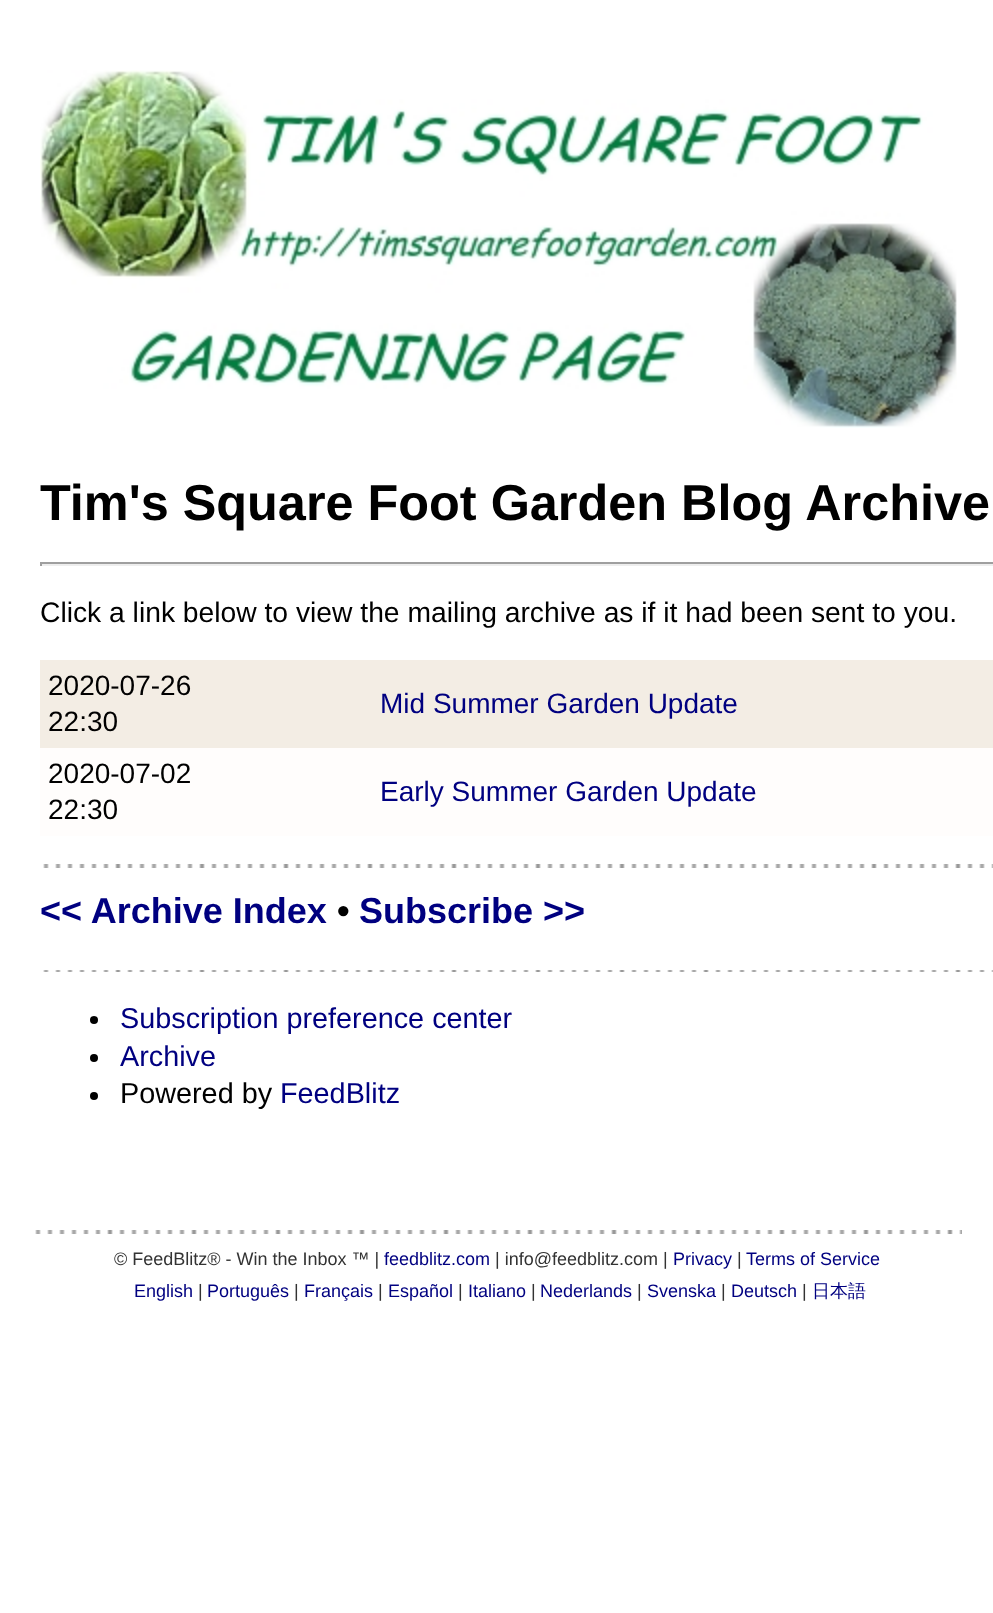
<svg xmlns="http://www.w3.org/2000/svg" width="993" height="1613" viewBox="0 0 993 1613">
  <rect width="100%" height="100%" fill="rgb(255,255,255)"/>
  <image x="40" y="70" width="917" height="358" href="pic1.png"/>
  <text x="40" y="520" font-family="Liberation Sans" font-size="50.4" font-weight="bold" fill="rgb(0,0,0)">Tim's Square Foot Garden Blog Archive</text>
  <rect x="40" y="562" width="953" height="2" fill="rgb(159,159,159)"/>
  <rect x="40" y="564" width="953" height="2" fill="rgb(238,238,238)"/>
  <rect x="40" y="562" width="2" height="4" fill="rgb(159,159,159)"/>
  <text x="40" y="622" font-family="Liberation Sans" font-size="28.25" fill="rgb(0,0,0)">Click a link below to view the mailing archive as if it had been sent to you.</text>
  <rect x="40" y="660" width="953" height="88" fill="rgb(243,237,228)"/>
  <g font-family="Liberation Sans" font-size="28" fill="rgb(0,0,0)">
    <text>
      <tspan x="48" y="695">2020-07-26</tspan>
      <tspan x="48" y="731">22:30</tspan>
    </text>
  </g>
  <text x="380" y="713" font-family="Liberation Sans" font-size="28" fill="rgb(0,0,128)">Mid Summer Garden Update</text>
  <rect x="40" y="748" width="953" height="88" fill="rgb(255,253,252)"/>
  <g font-family="Liberation Sans" font-size="28" fill="rgb(0,0,0)">
    <text>
      <tspan x="48" y="783">2020-07-02</tspan>
      <tspan x="48" y="819">22:30</tspan>
    </text>
  </g>
  <text x="380" y="801" font-family="Liberation Sans" font-size="28" fill="rgb(0,0,128)">Early Summer Garden Update</text>
  <image x="43" y="864" width="950" height="4" href="pic2.png"/>
  <text x="40" y="923" font-family="Liberation Sans" font-size="36" font-weight="bold" fill="rgb(0,0,128)">&lt;&lt; Archive Index</text>
  <text x="337" y="923" font-family="Liberation Sans" font-size="36" font-weight="bold" fill="rgb(0,0,0)">•</text>
  <text x="359" y="923" font-family="Liberation Sans" font-size="36" font-weight="bold" fill="rgb(0,0,128)">Subscribe &gt;&gt;</text>
  <image x="43" y="970" width="950" height="2" href="pic3.png"/>
  <circle cx="94" cy="1020" r="4" fill="rgb(0,0,0)"/>
  <text x="120" y="1028" font-family="Liberation Sans" font-size="28.8" fill="rgb(0,0,128)">Subscription preference center</text>
  <circle cx="94" cy="1058" r="4" fill="rgb(0,0,0)"/>
  <text x="120" y="1066" font-family="Liberation Sans" font-size="28.8" fill="rgb(0,0,128)">Archive</text>
  <circle cx="94" cy="1096" r="4" fill="rgb(0,0,0)"/>
  <text x="120" y="1103" font-family="Liberation Sans" font-size="28.8" fill="rgb(0,0,0)">Powered by</text>
  <text x="280" y="1103" font-family="Liberation Sans" font-size="28.8" fill="rgb(0,0,128)">FeedBlitz</text>
  <image x="35" y="1230" width="927" height="4" href="pic4.png"/>
  <text x="114" y="1265" font-family="Liberation Sans" font-size="18" fill="rgb(51,51,51)">© FeedBlitz® - Win the Inbox ™ |</text>
  <text x="384" y="1265" font-family="Liberation Sans" font-size="18" fill="rgb(0,0,128)">feedblitz.com</text>
  <text x="495" y="1265" font-family="Liberation Sans" font-size="18" fill="rgb(51,51,51)">| info@feedblitz.com |</text>
  <text x="673" y="1265" font-family="Liberation Sans" font-size="18" fill="rgb(0,0,128)">Privacy</text>
  <text x="737" y="1265" font-family="Liberation Sans" font-size="18" fill="rgb(51,51,51)">|</text>
  <g font-family="Liberation Sans" font-size="18" fill="rgb(0,0,128)">
    <text x="746" y="1265">Terms of Service</text>
    <text x="134" y="1297">English</text>
  </g>
  <text x="198" y="1297" font-family="Liberation Sans" font-size="18" fill="rgb(51,51,51)">|</text>
  <text x="207" y="1297" font-family="Liberation Sans" font-size="18" fill="rgb(0,0,128)">Português</text>
  <text x="294" y="1297" font-family="Liberation Sans" font-size="18" fill="rgb(51,51,51)">|</text>
  <text x="304" y="1297" font-family="Liberation Sans" font-size="18" fill="rgb(0,0,128)">Français</text>
  <text x="378" y="1297" font-family="Liberation Sans" font-size="18" fill="rgb(51,51,51)">|</text>
  <text x="388" y="1297" font-family="Liberation Sans" font-size="18" fill="rgb(0,0,128)">Español</text>
  <text x="458" y="1297" font-family="Liberation Sans" font-size="18" fill="rgb(51,51,51)">|</text>
  <text x="468" y="1297" font-family="Liberation Sans" font-size="18" fill="rgb(0,0,128)">Italiano</text>
  <text x="531" y="1297" font-family="Liberation Sans" font-size="18" fill="rgb(51,51,51)">|</text>
  <text x="540" y="1297" font-family="Liberation Sans" font-size="18" fill="rgb(0,0,128)">Nederlands</text>
  <text x="637" y="1297" font-family="Liberation Sans" font-size="18" fill="rgb(51,51,51)">|</text>
  <text x="647" y="1297" font-family="Liberation Sans" font-size="18" fill="rgb(0,0,128)">Svenska</text>
  <text x="721" y="1297" font-family="Liberation Sans" font-size="18" fill="rgb(51,51,51)">|</text>
  <text x="731" y="1297" font-family="Liberation Sans" font-size="18" fill="rgb(0,0,128)">Deutsch</text>
  <text x="802" y="1297" font-family="Liberation Sans" font-size="18" fill="rgb(51,51,51)">|</text>
  <text x="812" y="1297" font-family="WenQuanYi Zen Hei" font-size="18" font-weight="500" fill="rgb(0,0,128)">日本語</text>
</svg>
